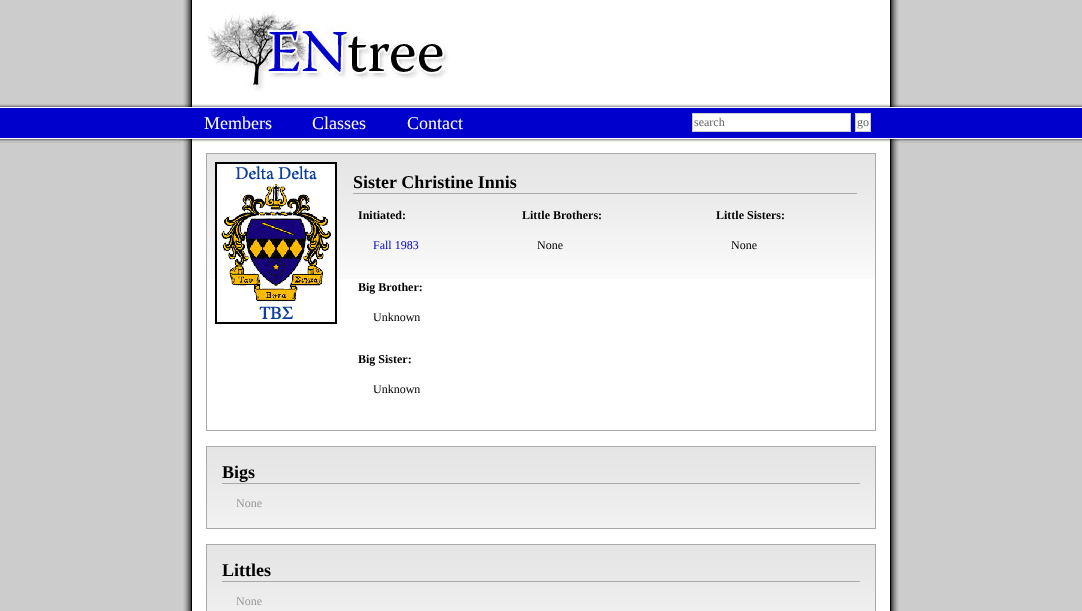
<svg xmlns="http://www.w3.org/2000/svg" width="1082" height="611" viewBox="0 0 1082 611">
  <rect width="100%" height="100%" fill="rgb(204,204,204)"/>
  <image x="183" y="0" width="716" height="104" href="pic1.png"/>
  <image x="207" y="10" width="242" height="81" href="pic2.png"/>
  <image x="0" y="104" width="1082" height="39" href="pic3.png"/>
  <image x="181" y="104" width="720" height="39" href="pic4.png"/>
  <g font-family="Liberation Serif" font-size="18" fill="rgb(255,255,255)">
    <text x="204" y="129">Members</text>
    <text x="312" y="129">Classes</text>
    <text x="407" y="129">Contact</text>
  </g>
  <rect x="692.5" y="113.5" width="158" height="18" fill="rgb(255,255,255)" stroke="rgb(204,204,204)"/>
  <text x="694" y="126" font-family="Liberation Serif" font-size="12" fill="rgb(102,102,102)">search</text>
  <rect x="855.5" y="113.5" width="15" height="18" fill="rgb(255,255,255)" stroke="rgb(204,204,204)"/>
  <text x="857" y="126" font-family="Liberation Serif" font-size="12" fill="rgb(102,102,102)">go</text>
  <image x="183" y="143" width="716" height="468" href="pic5.png"/>
  <image x="207" y="154" width="668" height="125" href="pic6.png"/>
  <rect x="206.5" y="153.5" width="669" height="277" fill="none" stroke="rgb(170,170,170)"/>
  <rect x="215.5" y="162.5" width="121" height="161" fill="none" stroke="rgb(0,0,0)"/>
  <image x="216" y="163" width="120" height="160" href="pic7.png"/>
  <rect x="353" y="193" width="504" height="1" fill="rgb(170,170,170)"/>
  <text x="353" y="188" font-family="Liberation Serif" font-size="18" font-weight="bold" fill="rgb(0,0,0)">Sister Christine Innis</text>
  <text x="358" y="219" font-family="Liberation Serif" font-size="12" font-weight="bold" fill="rgb(0,0,0)">Initiated:</text>
  <text x="373" y="249" font-family="Liberation Serif" font-size="12" fill="rgb(0,0,204)">Fall 1983</text>
  <text x="358" y="291" font-family="Liberation Serif" font-size="12" font-weight="bold" fill="rgb(0,0,0)">Big Brother:</text>
  <text x="373" y="321" font-family="Liberation Serif" font-size="12" fill="rgb(0,0,0)">Unknown</text>
  <text x="358" y="363" font-family="Liberation Serif" font-size="12" font-weight="bold" fill="rgb(0,0,0)">Big Sister:</text>
  <text x="373" y="393" font-family="Liberation Serif" font-size="12" fill="rgb(0,0,0)">Unknown</text>
  <text x="522" y="219" font-family="Liberation Serif" font-size="12" font-weight="bold" fill="rgb(0,0,0)">Little Brothers:</text>
  <text x="537" y="249" font-family="Liberation Serif" font-size="12" fill="rgb(0,0,0)">None</text>
  <text x="716" y="219" font-family="Liberation Serif" font-size="12" font-weight="bold" fill="rgb(0,0,0)">Little Sisters:</text>
  <text x="731" y="249" font-family="Liberation Serif" font-size="12" fill="rgb(0,0,0)">None</text>
  <image x="207" y="447" width="668" height="81" href="pic8.png"/>
  <rect x="206.5" y="446.5" width="669" height="82" fill="none" stroke="rgb(170,170,170)"/>
  <rect x="222" y="483" width="638" height="1" fill="rgb(170,170,170)"/>
  <text x="222" y="478" font-family="Liberation Serif" font-size="18" font-weight="bold" fill="rgb(0,0,0)">Bigs</text>
  <text x="236" y="507" font-family="Liberation Serif" font-size="12" fill="rgb(153,153,153)">None</text>
  <image x="207" y="545" width="668" height="66" href="pic9.png"/>
  <rect x="206.5" y="544.5" width="669" height="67" fill="none" stroke="rgb(170,170,170)"/>
  <rect x="222" y="581" width="638" height="1" fill="rgb(170,170,170)"/>
  <text x="222" y="576" font-family="Liberation Serif" font-size="18" font-weight="bold" fill="rgb(0,0,0)">Littles</text>
  <text x="236" y="605" font-family="Liberation Serif" font-size="12" fill="rgb(153,153,153)">None</text>
</svg>
